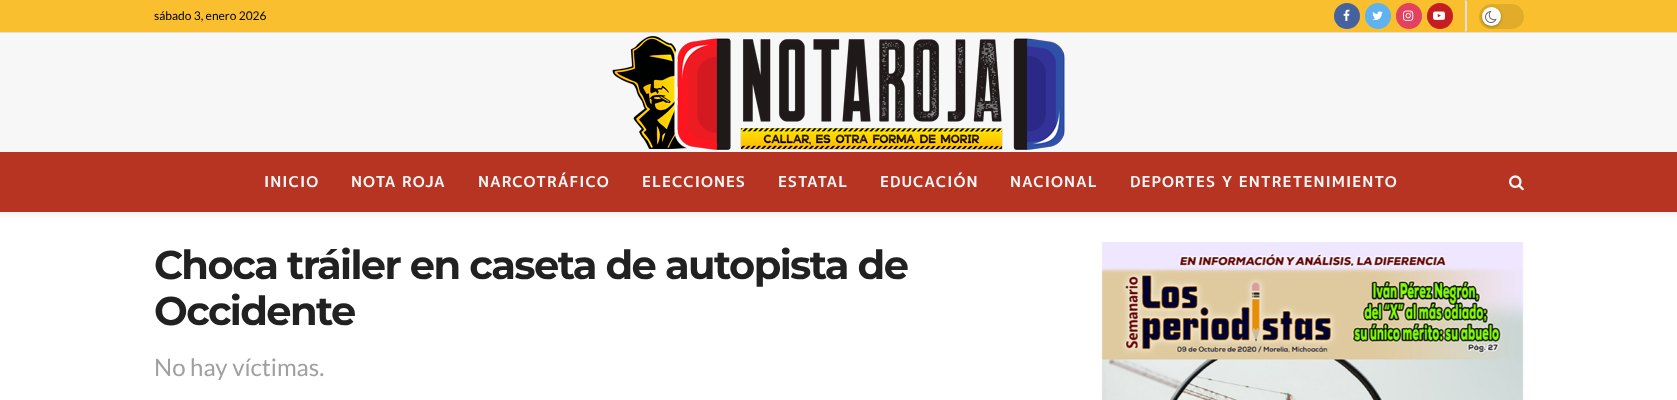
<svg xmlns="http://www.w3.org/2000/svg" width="1677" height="400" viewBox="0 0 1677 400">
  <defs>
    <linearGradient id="g1" gradientUnits="userSpaceOnUse" x1="839" y1="212" x2="839" y2="220"><stop offset="0" stop-color="rgb(242,242,242)"/><stop offset="1" stop-color="rgb(255,255,255)"/></linearGradient>
  </defs>
  <rect width="100%" height="100%" fill="rgb(255,255,255)"/>
  <rect x="0" y="0" width="1677" height="32" fill="rgb(249,191,47)"/>
  <rect x="0" y="32" width="1677" height="1" fill="rgb(224,224,224)"/>
  <text x="154" y="20" font-family="Lato" font-size="12" fill="rgb(0,0,0)">sábado 3, enero 2026</text>
  <rect x="1465" y="0" width="1" height="32" fill="rgb(224,224,224)"/>
  <circle cx="1347" cy="16" r="13" fill="rgb(69,98,159)"/>
  <image x="1343" y="9" width="7" height="12" href="pic1.png"/>
  <circle cx="1378" cy="16" r="13" fill="rgb(94,178,239)"/>
  <image x="1372" y="11" width="11" height="9" href="pic2.png"/>
  <circle cx="1409" cy="16" r="13" fill="rgb(228,64,95)"/>
  <image x="1403" y="10" width="11" height="11" href="pic3.png"/>
  <circle cx="1440" cy="16" r="13" fill="rgb(198,29,35)"/>
  <image x="1433" y="11" width="12" height="9" href="pic4.png"/>
  <rect x="1466" y="1" width="1" height="30" fill="rgb(224,224,224)"/>
  <rect x="1479" y="4" width="45" height="25" rx="12.5" fill="rgb(224,172,42)"/>
  <rect x="1482" y="8" width="19" height="19" rx="9.5" fill="rgba(0,0,0,0.3)" filter="blur(1.5px)"/>
  <circle cx="1491.5" cy="16.5" r="9.5" fill="rgb(255,255,255)"/>
  <image x="1485" y="11" width="12" height="12" href="pic5.png"/>
  <rect x="0" y="33" width="1677" height="119" fill="rgb(247,247,247)"/>
  <image x="612" y="36" width="453" height="114" href="pic6.png"/>
  <rect x="0" y="152" width="1677" height="60" fill="rgb(183,52,35)"/>
  <g font-family="'M PLUS 1p'" font-size="15" font-weight="bold" letter-spacing="1" fill="rgb(245,245,245)">
    <text x="264" y="187">INICIO</text>
    <text x="351" y="187">NOTA ROJA</text>
    <text x="478" y="187">NARCOTRÁFICO</text>
    <text x="642" y="187">ELECCIONES</text>
    <text x="778" y="187">ESTATAL</text>
    <text x="880" y="187">EDUCACIÓN</text>
    <text x="1010" y="187">NACIONAL</text>
    <text x="1130" y="187">DEPORTES Y ENTRETENIMIENTO</text>
  </g>
  <image x="1509" y="175" width="15" height="16" href="pic7.png"/>
  <rect x="0" y="212" width="1677" height="6" fill="url(#g1)"/>
  <g font-family="Montserrat" font-size="40" font-weight="bold" letter-spacing="-1.6" fill="rgb(33,33,33)">
    <text>
      <tspan x="154" y="279">Choca tráiler en caseta de autopista de</tspan>
      <tspan x="154" y="325">Occidente</tspan>
    </text>
  </g>
  <text x="154" y="376" font-family="Lato" font-size="24" fill="rgb(160,160,160)">No hay víctimas.</text>
  <image x="1101" y="242" width="423" height="158" href="pic8.png"/>
</svg>
